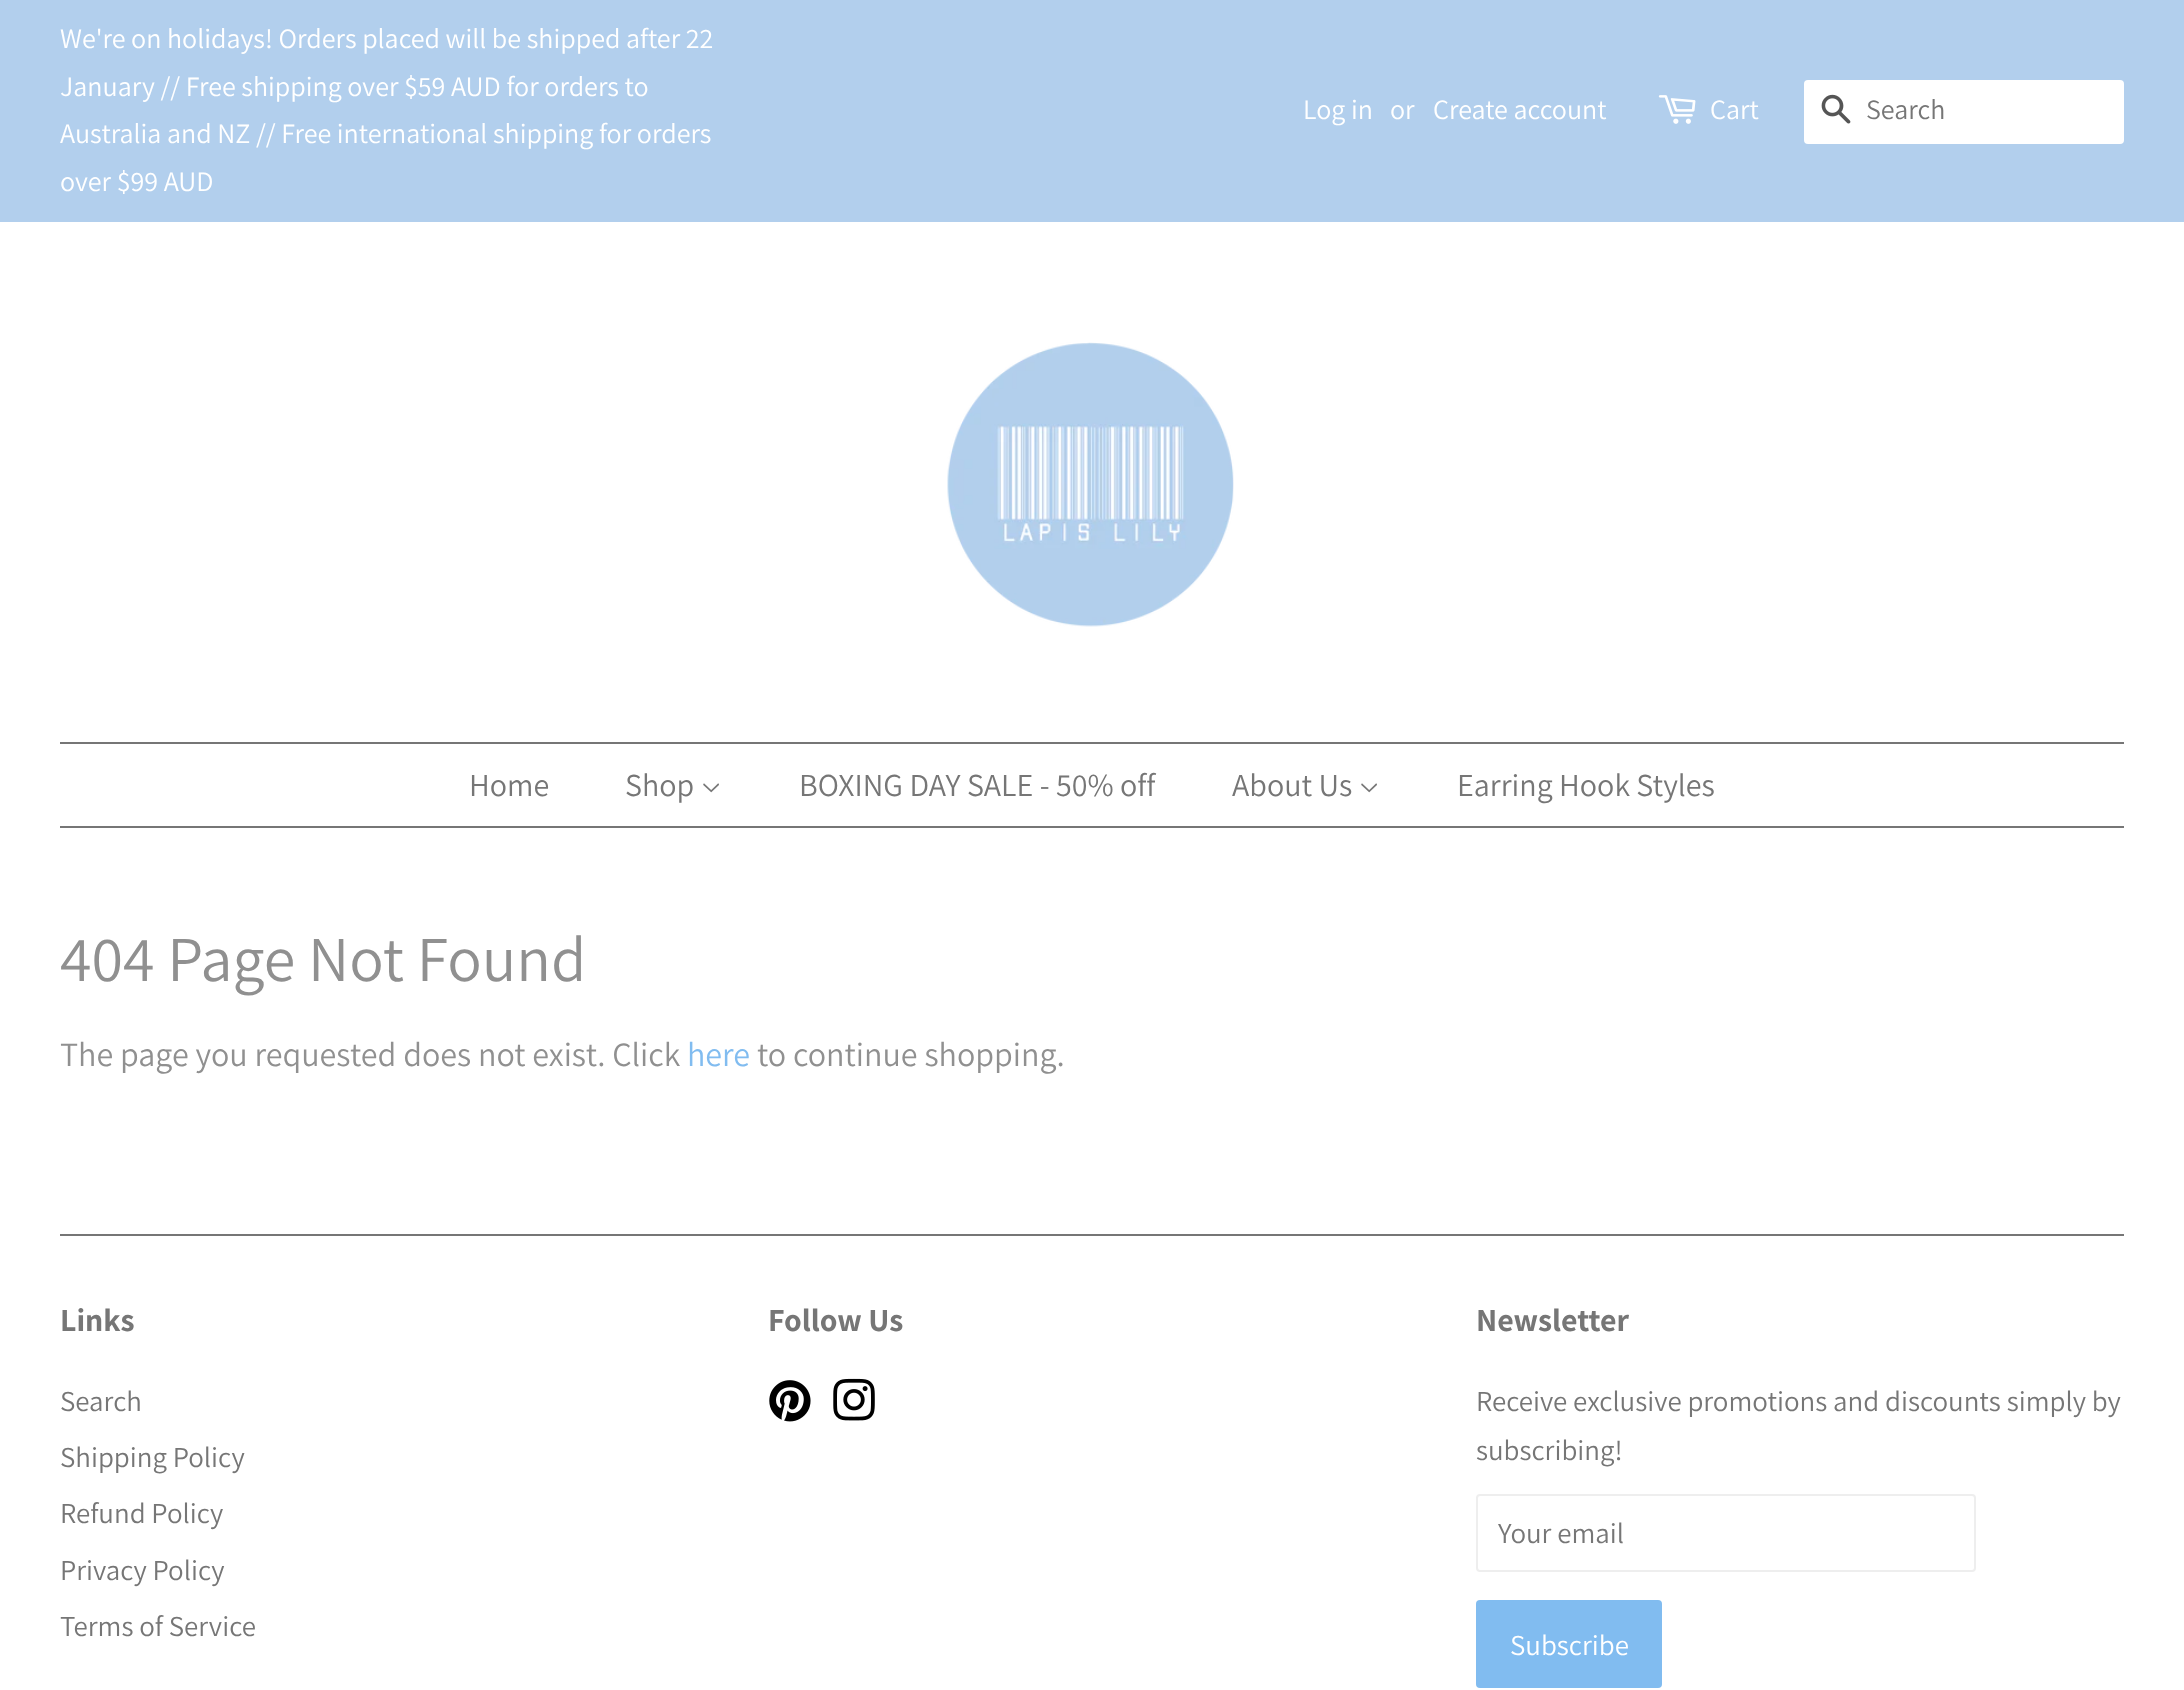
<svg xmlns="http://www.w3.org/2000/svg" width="2184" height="1690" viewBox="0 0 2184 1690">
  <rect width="100%" height="100%" fill="rgb(255,255,255)"/>
  <rect x="0" y="0" width="2184" height="222" fill="rgb(178,207,237)"/>
  <g font-family="Assistant" font-size="28" fill="rgb(255,255,255)">
    <text>
      <tspan x="60" y="48">We're on holidays! Orders placed will be shipped after 22</tspan>
      <tspan x="60" y="96">January // Free shipping over $59 AUD for orders to</tspan>
      <tspan x="60" y="143">Australia and NZ // Free international shipping for orders</tspan>
      <tspan x="60" y="191">over $99 AUD</tspan>
    </text>
    <text x="1303" y="119">Log in</text>
    <text x="1390" y="119">or</text>
    <text x="1433" y="119">Create account</text>
  </g>
  <image x="1658" y="95" width="38" height="29" href="pic1.png"/>
  <text x="1710" y="119" font-family="Assistant" font-size="28" fill="rgb(255,255,255)">Cart</text>
  <rect x="1804" y="80" width="320" height="64" rx="4" fill="rgb(255,255,255)"/>
  <image x="1821" y="94" width="30" height="30" href="pic2.png"/>
  <text x="1866" y="119" font-family="Assistant" font-size="28" fill="rgb(118,118,118)">Search</text>
  <image x="947" y="342" width="287" height="285" href="pic3.png"/>
  <rect x="60" y="742" width="2064" height="2" fill="rgb(118,118,118)"/>
  <rect x="60" y="826" width="2064" height="2" fill="rgb(118,118,118)"/>
  <g font-family="Assistant" font-size="32" fill="rgb(118,118,118)">
    <text x="469" y="796">Home</text>
    <text x="625" y="796">Shop</text>
  </g>
  <image x="703" y="783" width="16" height="10" href="pic4.png"/>
  <g font-family="Assistant" font-size="32" fill="rgb(118,118,118)">
    <text x="799" y="796">BOXING DAY SALE - 50% off</text>
    <text x="1232" y="796">About Us</text>
  </g>
  <image x="1361" y="783" width="16" height="10" href="pic4.png"/>
  <text x="1457" y="796" font-family="Assistant" font-size="32" fill="rgb(118,118,118)">Earring Hook Styles</text>
  <text x="60" y="981" font-family="Assistant" font-size="64" fill="rgb(144,144,144)">404 Page Not Found</text>
  <text x="60" y="1066" font-family="Assistant" font-size="34" fill="rgb(144,144,144)">The page you requested does not exist. Click</text>
  <text x="687" y="1066" font-family="Assistant" font-size="34" fill="rgb(129,188,240)">here</text>
  <text x="757" y="1066" font-family="Assistant" font-size="34" fill="rgb(144,144,144)">to continue shopping.</text>
  <rect x="60" y="1234" width="2064" height="2" fill="rgb(118,118,118)"/>
  <text x="60" y="1331" font-family="Assistant" font-size="32" font-weight="bold" fill="rgb(118,118,118)">Links</text>
  <g font-family="Assistant" font-size="28.9" fill="rgb(118,118,118)">
    <text>
      <tspan x="60" y="1411">Search</tspan>
      <tspan x="60" y="1467">Shipping Policy</tspan>
      <tspan x="60" y="1523">Refund Policy</tspan>
      <tspan x="60" y="1580">Privacy Policy</tspan>
      <tspan x="60" y="1636">Terms of Service</tspan>
    </text>
  </g>
  <text x="768" y="1331" font-family="Assistant" font-size="32" font-weight="bold" fill="rgb(118,118,118)">Follow Us</text>
  <image x="769" y="1380" width="42" height="42" href="pic5.png"/>
  <image x="833" y="1378" width="42" height="43" href="pic6.png"/>
  <text x="1476" y="1331" font-family="Assistant" font-size="32" font-weight="bold" fill="rgb(118,118,118)">Newsletter</text>
  <g font-family="Assistant" font-size="28.9" fill="rgb(118,118,118)">
    <text>
      <tspan x="1476" y="1411">Receive exclusive promotions and discounts simply by</tspan>
      <tspan x="1476" y="1460">subscribing!</tspan>
    </text>
  </g>
  <rect x="1477" y="1495" width="498" height="76" rx="3" fill="none" stroke="rgb(238,238,238)" stroke-width="2"/>
  <text x="1498" y="1543" font-family="Assistant" font-size="28.9" fill="rgb(118,118,118)">Your email</text>
  <rect x="1476" y="1600" width="186" height="88" rx="4" fill="rgb(129,188,240)"/>
  <text x="1510" y="1655" font-family="Assistant" font-size="28.9" fill="rgb(255,255,255)">Subscribe</text>
</svg>
